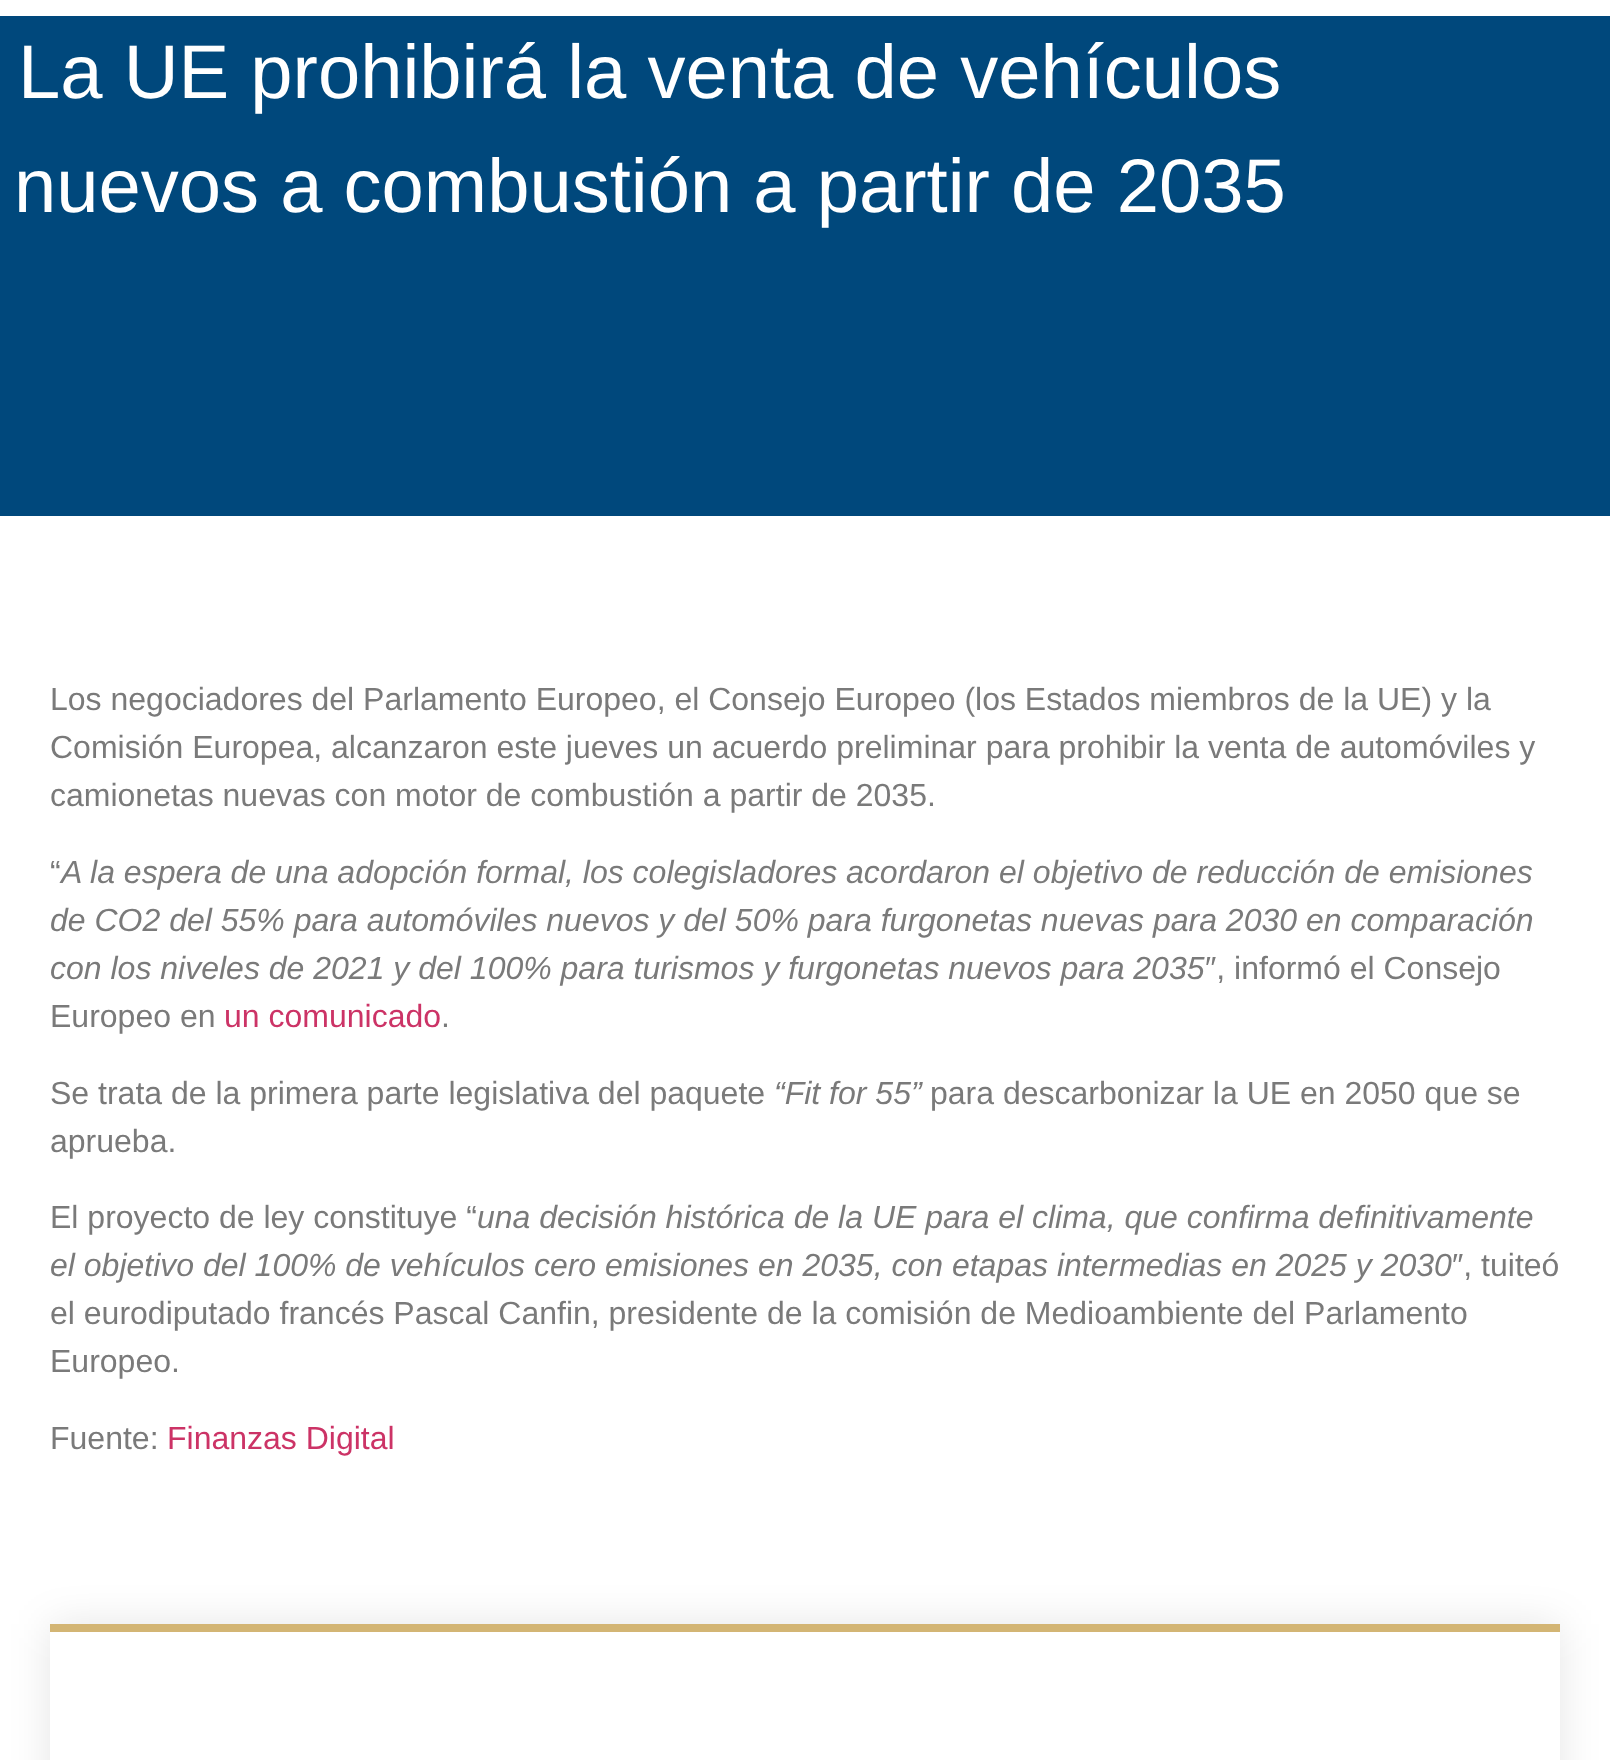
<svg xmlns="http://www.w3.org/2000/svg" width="1610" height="1760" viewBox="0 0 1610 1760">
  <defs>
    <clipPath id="clip1"><path d="M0 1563H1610V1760H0ZM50 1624H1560V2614H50Z" clip-rule="evenodd"/></clipPath>
  </defs>
  <rect width="100%" height="100%" fill="rgb(255,255,255)"/>
  <rect x="0" y="16" width="1610" height="500" fill="rgb(0,72,124)"/>
  <g font-family="Liberation Sans" font-size="76" fill="rgb(255,255,255)">
    <text x="18" y="98">La UE prohibirá la venta de vehículos</text>
    <text x="14" y="212">nuevos a combustión a partir de 2035</text>
  </g>
  <g font-family="Liberation Sans" font-size="32" fill="rgb(122,122,122)">
    <text>
      <tspan x="50" y="710">Los negociadores del Parlamento Europeo, el Consejo Europeo (los Estados miembros de la UE) y la</tspan>
      <tspan x="50" y="758">Comisión Europea, alcanzaron este jueves un acuerdo preliminar para prohibir la venta de automóviles y</tspan>
      <tspan x="50" y="806">camionetas nuevas con motor de combustión a partir de 2035.</tspan>
    </text>
    <text x="50" y="883">“</text>
  </g>
  <g font-family="Liberation Sans" font-size="32" font-style="italic" fill="rgb(122,122,122)">
    <text x="61" y="883">A la espera de una adopción formal, los colegisladores acordaron el objetivo de reducción de emisiones</text>
    <text>
      <tspan x="50" y="931">de CO2 del 55% para automóviles nuevos y del 50% para furgonetas nuevas para 2030 en comparación</tspan>
      <tspan x="50" y="979">con los niveles de 2021 y del 100% para turismos y furgonetas nuevos para 2035</tspan>
    </text>
  </g>
  <g font-family="Liberation Sans" font-size="32" fill="rgb(122,122,122)">
    <text x="1205" y="979">″, informó el Consejo</text>
    <text x="50" y="1027">Europeo en</text>
  </g>
  <text x="224" y="1027" font-family="Liberation Sans" font-size="32" fill="rgb(204,51,102)">un comunicado</text>
  <g font-family="Liberation Sans" font-size="32" fill="rgb(122,122,122)">
    <text x="441" y="1027">.</text>
    <text x="50" y="1104">Se trata de la primera parte legislativa del paquete</text>
  </g>
  <text x="774" y="1104" font-family="Liberation Sans" font-size="32" font-style="italic" fill="rgb(122,122,122)">“Fit for 55”</text>
  <g font-family="Liberation Sans" font-size="32" fill="rgb(122,122,122)">
    <text x="930" y="1104">para descarbonizar la UE en 2050 que se</text>
    <text x="50" y="1152">aprueba.</text>
    <text x="50" y="1228">El proyecto de ley constituye “</text>
  </g>
  <g font-family="Liberation Sans" font-size="32" font-style="italic" fill="rgb(122,122,122)">
    <text x="477" y="1228">una decisión histórica de la UE para el clima, que confirma definitivamente</text>
    <text x="50" y="1276">el objetivo del 100% de vehículos cero emisiones en 2035, con etapas intermedias en 2025 y 2030</text>
  </g>
  <g font-family="Liberation Sans" font-size="32" fill="rgb(122,122,122)">
    <text x="1452" y="1276">″, tuiteó</text>
    <text>
      <tspan x="50" y="1324">el eurodiputado francés Pascal Canfin, presidente de la comisión de Medioambiente del Parlamento</tspan>
      <tspan x="50" y="1372">Europeo.</tspan>
    </text>
    <text x="50" y="1449">Fuente:</text>
  </g>
  <text x="167" y="1449" font-family="Liberation Sans" font-size="32" fill="rgb(204,51,102)">Finanzas Digital</text>
  <g clip-path="url(#clip1)">
    <rect x="50" y="1624" width="1510" height="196" fill="rgba(0,0,0,0.1)" filter="blur(20px)"/>
  </g>
  <rect x="50" y="1624" width="1510" height="8" fill="rgb(211,181,116)"/>
</svg>
